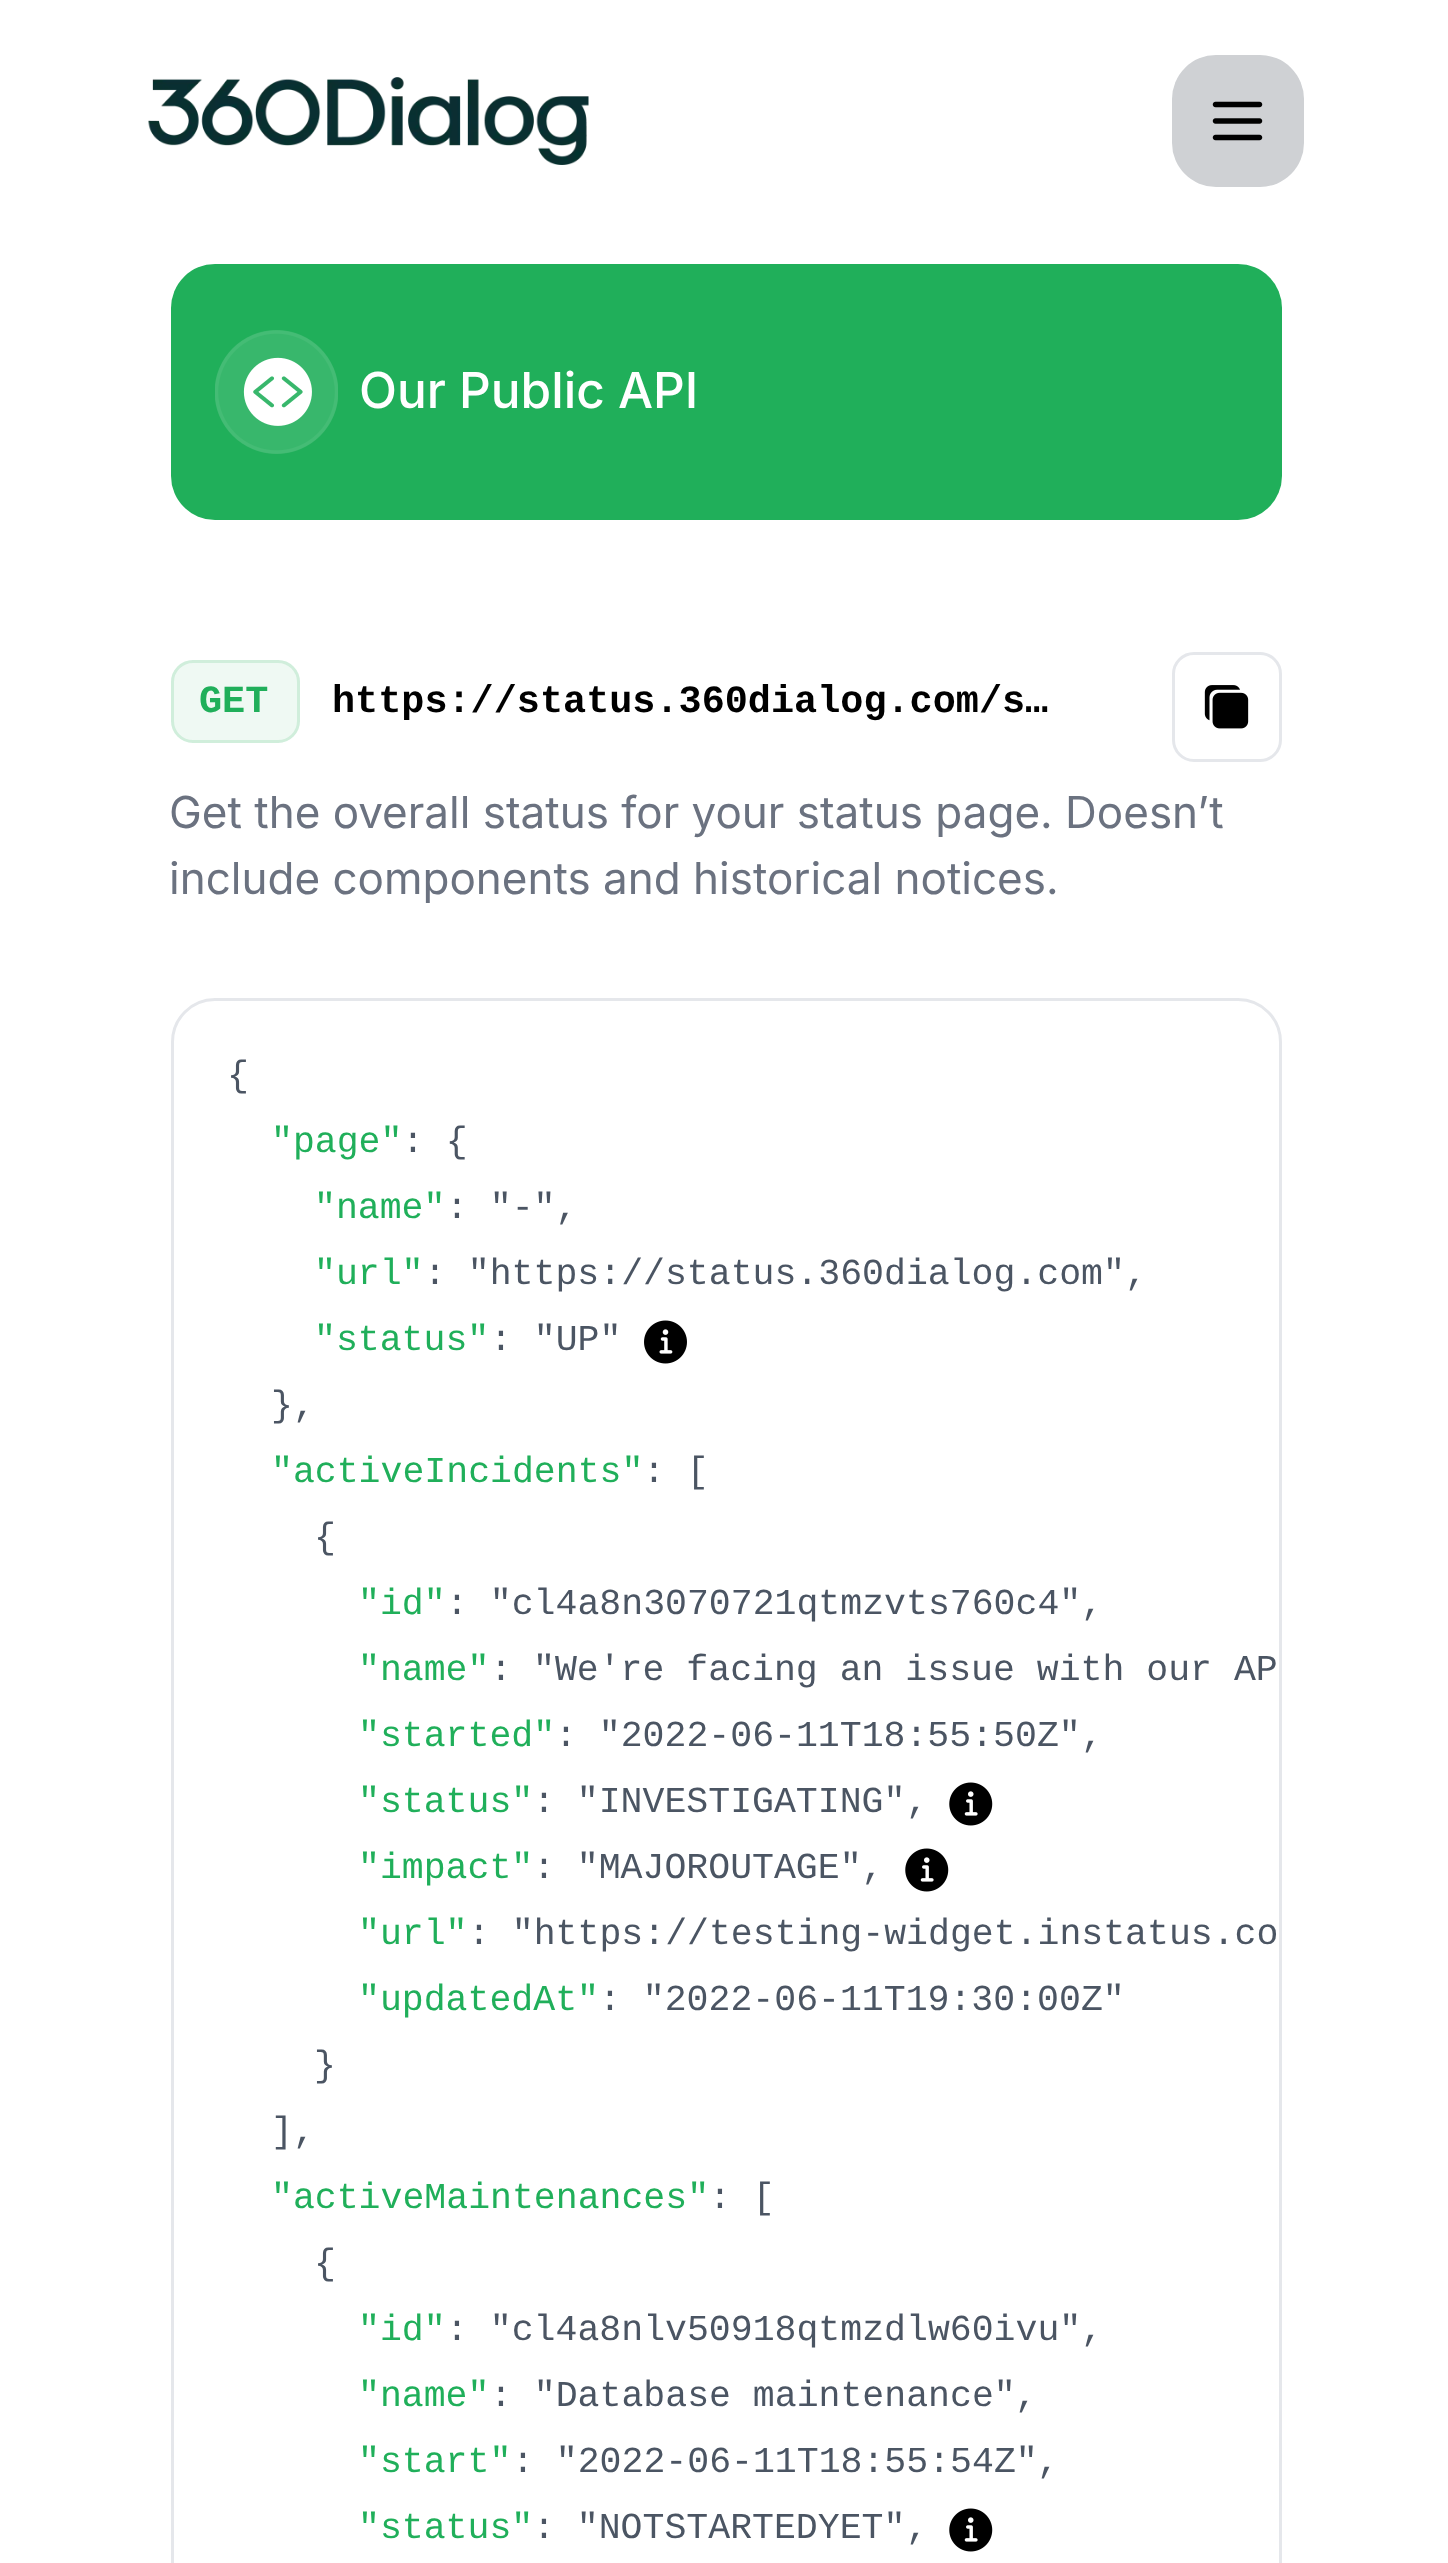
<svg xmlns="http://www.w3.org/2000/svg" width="1448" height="2563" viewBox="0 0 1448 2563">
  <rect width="100%" height="100%" fill="rgb(255,255,255)"/>
  <image x="148" y="77" width="441" height="88" href="pic1.png"/>
  <rect x="1172" y="55" width="132" height="132" rx="44" fill="rgb(207,209,212)"/>
  <image x="1212" y="101" width="51" height="40" href="pic2.png"/>
  <rect x="171" y="264" width="1111" height="256" rx="44" fill="rgb(32,175,90)"/>
  <image x="215" y="330" width="123" height="124" href="pic3.png"/>
  <text x="359" y="408" font-family="Inter" font-size="49.5" font-weight="500" fill="rgb(255,255,255)">Our Public API</text>
  <rect x="171" y="660" width="129" height="83" rx="22" fill="rgb(239,249,243)"/>
  <rect x="172.5" y="661.5" width="126" height="80" rx="20.5" fill="none" stroke="rgba(32,175,90,0.15)" stroke-width="3"/>
  <text x="199" y="712" font-family="Liberation Mono" font-size="38.5" font-weight="bold" fill="rgb(32,175,90)">GET</text>
  <text x="332" y="712" font-family="Liberation Mono" font-size="38.5" font-weight="bold" fill="rgb(0,0,0)">https://status.360dialog.com/s…</text>
  <rect x="1173.5" y="653.5" width="107" height="107" rx="20.5" fill="none" stroke="rgb(229,231,235)" stroke-width="3"/>
  <image x="1204" y="685" width="45" height="44" href="pic4.png"/>
  <g font-family="Inter" font-size="44" fill="rgb(107,114,128)">
    <text>
      <tspan x="169" y="828">Get the overall status for your status page. Doesn’t</tspan>
      <tspan x="169" y="894">include components and historical notices.</tspan>
    </text>
  </g>
  <rect x="172.5" y="999.5" width="1108" height="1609" rx="42.5" fill="none" stroke="rgb(229,231,235)" stroke-width="3"/>
  <text x="227" y="1086" font-family="Liberation Mono" font-size="36.5" fill="rgb(75,85,99)">{</text>
  <text x="271" y="1152" font-family="Liberation Mono" font-size="36.5" fill="rgb(32,175,90)">"page"</text>
  <text x="402" y="1152" font-family="Liberation Mono" font-size="36.5" fill="rgb(75,85,99)">: {</text>
  <text x="314" y="1218" font-family="Liberation Mono" font-size="36.5" fill="rgb(32,175,90)">"name"</text>
  <text x="446" y="1218" font-family="Liberation Mono" font-size="36.5" fill="rgb(75,85,99)">: "-",</text>
  <text x="314" y="1284" font-family="Liberation Mono" font-size="36.5" fill="rgb(32,175,90)">"url"</text>
  <g font-family="Liberation Mono" font-size="36.5" fill="rgb(75,85,99)">
    <text x="424" y="1284">: "https://status.360dialog.com"</text>
    <text x="1125" y="1284">,</text>
  </g>
  <text x="314" y="1350" font-family="Liberation Mono" font-size="36.5" fill="rgb(32,175,90)">"status"</text>
  <text x="490" y="1350" font-family="Liberation Mono" font-size="36.5" fill="rgb(75,85,99)">: "UP"</text>
  <image x="644" y="1320" width="43" height="44" href="pic5.png"/>
  <text x="271" y="1416" font-family="Liberation Mono" font-size="36.5" fill="rgb(75,85,99)">},</text>
  <text x="271" y="1482" font-family="Liberation Mono" font-size="36.5" fill="rgb(32,175,90)">"activeIncidents"</text>
  <g font-family="Liberation Mono" font-size="36.5" fill="rgb(75,85,99)">
    <text x="643" y="1482">: [</text>
    <text x="314" y="1548">{</text>
  </g>
  <text x="358" y="1614" font-family="Liberation Mono" font-size="36.5" fill="rgb(32,175,90)">"id"</text>
  <g font-family="Liberation Mono" font-size="36.5" fill="rgb(75,85,99)">
    <text x="446" y="1614">: "cl4a8n3070721qtmzvts760c4"</text>
    <text x="1081" y="1614">,</text>
  </g>
  <text x="358" y="1680" font-family="Liberation Mono" font-size="36.5" fill="rgb(32,175,90)">"name"</text>
  <g font-family="Liberation Mono" font-size="36.5" fill="rgb(75,85,99)">
    <text x="490" y="1680">:</text>
    <text x="533" y="1680">"We're facing an issue with our AP</text>
  </g>
  <text x="358" y="1746" font-family="Liberation Mono" font-size="36.5" fill="rgb(32,175,90)">"started"</text>
  <g font-family="Liberation Mono" font-size="36.5" fill="rgb(75,85,99)">
    <text x="555" y="1746">: "2022-06-11T18:55:50Z"</text>
    <text x="1081" y="1746">,</text>
  </g>
  <text x="358" y="1812" font-family="Liberation Mono" font-size="36.5" fill="rgb(32,175,90)">"status"</text>
  <g font-family="Liberation Mono" font-size="36.5" fill="rgb(75,85,99)">
    <text x="533" y="1812">: "INVESTIGATING"</text>
    <text x="906" y="1812">,</text>
  </g>
  <image x="949" y="1782" width="44" height="44" href="pic6.png"/>
  <text x="358" y="1878" font-family="Liberation Mono" font-size="36.5" fill="rgb(32,175,90)">"impact"</text>
  <text x="533" y="1878" font-family="Liberation Mono" font-size="36.5" fill="rgb(75,85,99)">: "MAJOROUTAGE",</text>
  <image x="905" y="1848" width="44" height="44" href="pic6.png"/>
  <text x="358" y="1944" font-family="Liberation Mono" font-size="36.5" fill="rgb(32,175,90)">"url"</text>
  <text x="468" y="1944" font-family="Liberation Mono" font-size="36.5" fill="rgb(75,85,99)">: "https://testing-widget.instatus.co</text>
  <text x="358" y="2010" font-family="Liberation Mono" font-size="36.5" fill="rgb(32,175,90)">"updatedAt"</text>
  <g font-family="Liberation Mono" font-size="36.5" fill="rgb(75,85,99)">
    <text x="599" y="2010">: "2022-06-11T19:30:00Z"</text>
    <text x="314" y="2076">}</text>
    <text x="271" y="2142">],</text>
  </g>
  <text x="271" y="2208" font-family="Liberation Mono" font-size="36.5" fill="rgb(32,175,90)">"activeMaintenances"</text>
  <g font-family="Liberation Mono" font-size="36.5" fill="rgb(75,85,99)">
    <text x="709" y="2208">: [</text>
    <text x="314" y="2274">{</text>
  </g>
  <text x="358" y="2340" font-family="Liberation Mono" font-size="36.5" fill="rgb(32,175,90)">"id"</text>
  <g font-family="Liberation Mono" font-size="36.5" fill="rgb(75,85,99)">
    <text x="446" y="2340">: "cl4a8nlv50918qtmzdlw60ivu"</text>
    <text x="1081" y="2340">,</text>
  </g>
  <text x="358" y="2406" font-family="Liberation Mono" font-size="36.5" fill="rgb(32,175,90)">"name"</text>
  <g font-family="Liberation Mono" font-size="36.5" fill="rgb(75,85,99)">
    <text x="490" y="2406">: "Database maintenance"</text>
    <text x="1015" y="2406">,</text>
  </g>
  <text x="358" y="2472" font-family="Liberation Mono" font-size="36.5" fill="rgb(32,175,90)">"start"</text>
  <g font-family="Liberation Mono" font-size="36.5" fill="rgb(75,85,99)">
    <text x="512" y="2472">: "2022-06-11T18:55:54Z"</text>
    <text x="1037" y="2472">,</text>
  </g>
  <text x="358" y="2538" font-family="Liberation Mono" font-size="36.5" fill="rgb(32,175,90)">"status"</text>
  <g font-family="Liberation Mono" font-size="36.5" fill="rgb(75,85,99)">
    <text x="533" y="2538">: "NOTSTARTEDYET"</text>
    <text x="906" y="2538">,</text>
  </g>
  <image x="949" y="2508" width="44" height="44" href="pic6.png"/>
</svg>
